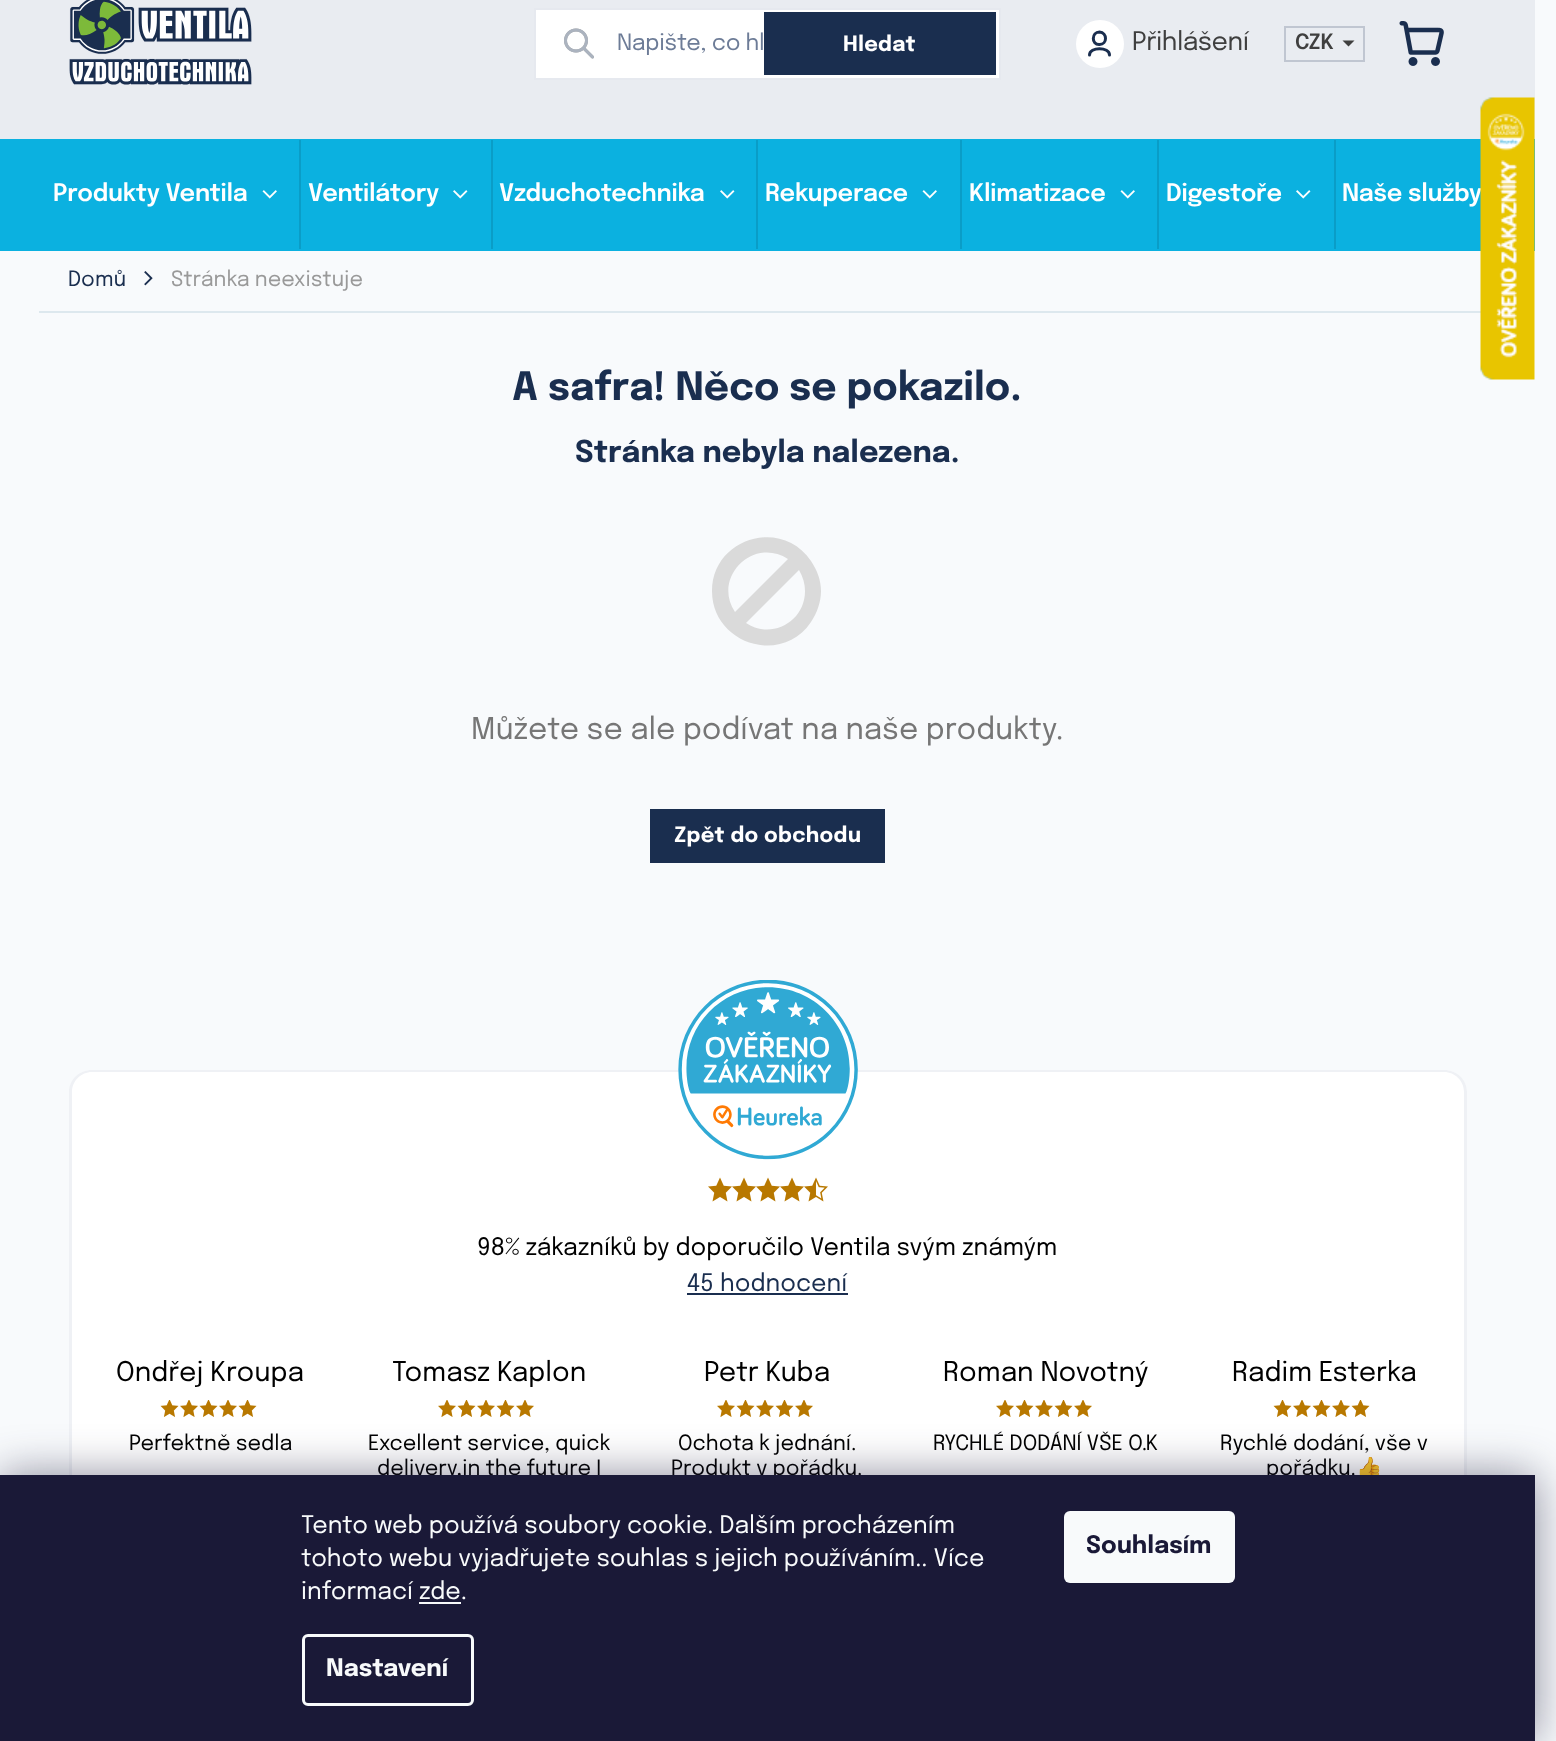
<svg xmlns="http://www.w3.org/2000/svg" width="1556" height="1741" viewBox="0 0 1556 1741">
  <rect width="100%" height="100%" fill="rgb(248,250,252)"/>
  <rect x="0" y="0" width="1535" height="139" fill="rgb(233,236,241)"/>
  <rect x="0" y="139" width="1535" height="112" fill="rgb(11,177,224)"/>
  <image x="69" y="0" width="183" height="85" href="pic1.png"/>
  <rect x="536" y="10" width="463" height="68" fill="rgb(255,255,255)"/>
  <image x="564" y="28" width="30" height="31" href="pic2.png"/>
  <rect x="535" y="9" width="465" height="70" fill="none" stroke="rgb(230,233,239)" stroke-width="2"/>
  <text x="617" y="50" font-family="Epilogue" font-size="22.5" letter-spacing="-0.25" fill="rgb(109,124,151)">Napište, co hl</text>
  <rect x="764" y="12" width="232" height="63" fill="rgb(26,46,79)"/>
  <text x="843" y="51" font-family="Epilogue" font-size="21" font-weight="bold" letter-spacing="0.25" fill="rgb(255,255,255)">Hledat</text>
  <circle cx="1100" cy="44" r="24" fill="rgb(255,255,255)"/>
  <path d="M1109.5 55C1109.5 46.5 1089.5 46.5 1089.5 55M1099.5 44.5C1091 45 1091.5 32 1099.5 32C1107.5 32.5 1107.5 44.5 1099.5 44.5Z" fill="none" stroke="rgb(26,46,79)" stroke-width="3" stroke-linecap="round" stroke-linejoin="round"/>
  <text x="1132" y="50" font-family="Epilogue" font-size="25.5" letter-spacing="-0.5" fill="rgb(63,63,63)">Přihlášení</text>
  <rect x="1285" y="27" width="79" height="34" fill="none" stroke="rgb(192,198,209)" stroke-width="2"/>
  <text x="1295" y="49" font-family="Epilogue" font-size="21" font-weight="600" fill="rgb(63,63,63)">CZK</text>
  <path d="M1342.5 40.5H1354.5L1348.5 46.5Z" fill="rgb(63,63,63)"/>
  <image x="1399" y="21" width="45" height="45" href="pic3.png"/>
  <text x="53" y="201" font-family="Epilogue" font-size="24" font-weight="600" letter-spacing="-0.25" fill="rgb(255,255,255)">Produkty Ventila</text>
  <image x="262" y="190" width="15" height="9" href="pic4.png"/>
  <rect x="299" y="140" width="2" height="109" fill="rgb(10,157,199)"/>
  <text x="308" y="201" font-family="Epilogue" font-size="24" font-weight="600" letter-spacing="-0.25" fill="rgb(255,255,255)">Ventilátory</text>
  <image x="453" y="190" width="15" height="9" href="pic5.png"/>
  <rect x="491" y="140" width="2" height="109" fill="rgb(10,157,199)"/>
  <text x="499" y="201" font-family="Epilogue" font-size="24" font-weight="600" letter-spacing="-0.25" fill="rgb(255,255,255)">Vzduchotechnika</text>
  <image x="720" y="190" width="15" height="9" href="pic5.png"/>
  <rect x="756" y="140" width="2" height="109" fill="rgb(10,157,199)"/>
  <text x="765" y="201" font-family="Epilogue" font-size="24" font-weight="600" letter-spacing="-0.25" fill="rgb(255,255,255)">Rekuperace</text>
  <image x="922" y="190" width="15" height="9" href="pic4.png"/>
  <rect x="960" y="140" width="2" height="109" fill="rgb(10,157,199)"/>
  <text x="969" y="201" font-family="Epilogue" font-size="24" font-weight="600" letter-spacing="-0.25" fill="rgb(255,255,255)">Klimatizace</text>
  <image x="1120" y="190" width="15" height="9" href="pic4.png"/>
  <rect x="1157" y="140" width="2" height="109" fill="rgb(10,157,199)"/>
  <text x="1166" y="201" font-family="Epilogue" font-size="24" font-weight="600" letter-spacing="-0.25" fill="rgb(255,255,255)">Digestoře</text>
  <image x="1296" y="190" width="15" height="9" href="pic5.png"/>
  <rect x="1334" y="140" width="2" height="109" fill="rgb(10,157,199)"/>
  <text x="1342" y="201" font-family="Epilogue" font-size="24" font-weight="600" letter-spacing="-0.25" fill="rgb(255,255,255)">Naše služby</text>
  <rect x="39" y="311" width="1442" height="2" fill="rgb(221,232,238)"/>
  <text x="68" y="286" font-family="Epilogue" font-size="21" fill="rgb(26,46,79)">Domů</text>
  <image x="144" y="271" width="9" height="15" href="pic6.png"/>
  <text x="171" y="286" font-family="Epilogue" font-size="21" fill="rgb(153,153,153)">Stránka neexistuje</text>
  <text x="512" y="400" font-family="Epilogue" font-size="39" font-weight="bold" fill="rgb(26,46,79)">A safra! Něco se pokazilo.</text>
  <text x="575" y="462" font-family="Epilogue" font-size="30" font-weight="bold" fill="rgb(26,46,79)">Stránka nebyla nalezena.</text>
  <path d="M805 591C805 584 803 577 799 570L746 623C771 640 805 622 805 591ZM735 612L788 559C753 536 712 578 735 612ZM821 591C821 602 817 613 811 622C782 666 712 644 712 591C712 538 782 517 811 561C817 570 821 580 821 591Z" fill="rgb(218,218,218)"/>
  <text x="471" y="739" font-family="Epilogue" font-size="30" fill="rgb(118,118,118)">Můžete se ale podívat na naše produkty.</text>
  <rect x="650" y="809" width="235" height="54" fill="rgb(26,46,79)"/>
  <text x="674" y="842" font-family="Epilogue" font-size="21" font-weight="bold" letter-spacing="0.25" fill="rgb(255,255,255)">Zpět do obchodu</text>
  <path d="M92 1070H1444C1456.5 1070 1467 1080.5 1467 1093V1160H69V1093C69 1080.5 79.5 1070 92 1070Z" fill="rgb(255,255,255)"/>
  <path d="M92 1070H1444C1457 1070 1467 1080 1467 1092V1160H69V1092C69 1080 79 1070 92 1070ZM92 1072H1444C1455 1072 1464 1081 1464 1092V1160H72V1092C72 1081 81 1072 92 1072Z" fill="rgb(239,241,245)" fill-rule="evenodd"/>
  <image x="678" y="980" width="180" height="180" href="pic7.png"/>
  <rect x="72" y="1160" width="1392" height="315" fill="rgb(255,255,255)"/>
  <path d="M69 1160H1467V1546C1467 1559 1457 1569 1444 1569H92C79 1569 69 1559 69 1546ZM72 1160H1464V1546C1464 1557 1455 1566 1444 1566H92C81 1566 72 1557 72 1546Z" fill="rgb(239,241,245)" fill-rule="evenodd"/>
  <image x="708" y="1177" width="24" height="25" href="pic8.png"/>
  <image x="732" y="1177" width="24" height="25" href="pic8.png"/>
  <image x="756" y="1177" width="24" height="25" href="pic8.png"/>
  <image x="780" y="1177" width="24" height="25" href="pic8.png"/>
  <image x="804" y="1177" width="24" height="25" href="pic9.png"/>
  <text x="477" y="1255" font-family="Epilogue" font-size="24" fill="rgb(0,0,0)">98% zákazníků by doporučilo Ventila svým známým</text>
  <text x="687" y="1291" font-family="Epilogue" font-size="24" fill="rgb(26,46,79)">45 hodnocení</text>
  <rect x="687" y="1293" width="161" height="2" fill="rgb(26,46,79)"/>
  <text x="116" y="1381" font-family="Epilogue" font-size="27" fill="rgb(0,0,0)">Ondřej Kroupa</text>
  <image x="160" y="1400" width="19" height="17" href="pic10.png"/>
  <image x="180" y="1400" width="18" height="17" href="pic11.png"/>
  <image x="199" y="1400" width="19" height="17" href="pic10.png"/>
  <image x="219" y="1400" width="18" height="17" href="pic11.png"/>
  <image x="238" y="1400" width="19" height="17" href="pic10.png"/>
  <text x="129" y="1450" font-family="Epilogue" font-size="21" fill="rgb(0,0,0)">Perfektně sedla</text>
  <text x="392" y="1381" font-family="Epilogue" font-size="27" fill="rgb(0,0,0)">Tomasz Kaplon</text>
  <image x="438" y="1400" width="18" height="17" href="pic11.png"/>
  <image x="457" y="1400" width="19" height="17" href="pic10.png"/>
  <image x="477" y="1400" width="18" height="17" href="pic11.png"/>
  <image x="496" y="1400" width="19" height="17" href="pic10.png"/>
  <image x="516" y="1400" width="18" height="17" href="pic11.png"/>
  <g font-family="Epilogue" font-size="21" fill="rgb(0,0,0)">
    <text x="368" y="1450">Excellent service, quick</text>
    <text x="377" y="1475">delivery,in the future I</text>
  </g>
  <text x="704" y="1381" font-family="Epilogue" font-size="27" fill="rgb(0,0,0)">Petr Kuba</text>
  <image x="717" y="1400" width="18" height="17" href="pic11.png"/>
  <image x="736" y="1400" width="19" height="17" href="pic10.png"/>
  <image x="756" y="1400" width="18" height="17" href="pic11.png"/>
  <image x="775" y="1400" width="19" height="17" href="pic10.png"/>
  <image x="795" y="1400" width="18" height="17" href="pic11.png"/>
  <g font-family="Epilogue" font-size="21" fill="rgb(0,0,0)">
    <text x="678" y="1450">Ochota k jednání.</text>
    <text x="671" y="1475">Produkt v pořádku.</text>
  </g>
  <text x="943" y="1381" font-family="Epilogue" font-size="27" fill="rgb(0,0,0)">Roman Novotný</text>
  <image x="996" y="1400" width="18" height="17" href="pic11.png"/>
  <image x="1015" y="1400" width="19" height="17" href="pic10.png"/>
  <image x="1035" y="1400" width="18" height="17" href="pic11.png"/>
  <image x="1054" y="1400" width="19" height="17" href="pic10.png"/>
  <image x="1074" y="1400" width="18" height="17" href="pic11.png"/>
  <text x="933" y="1450" font-family="Epilogue" font-size="21" fill="rgb(0,0,0)">RYCHLÉ DODÁNÍ VŠE O.K</text>
  <text x="1232" y="1381" font-family="Epilogue" font-size="27" fill="rgb(0,0,0)">Radim Esterka</text>
  <image x="1273" y="1400" width="19" height="17" href="pic10.png"/>
  <image x="1293" y="1400" width="18" height="17" href="pic11.png"/>
  <image x="1312" y="1400" width="19" height="17" href="pic10.png"/>
  <image x="1332" y="1400" width="18" height="17" href="pic11.png"/>
  <image x="1351" y="1400" width="19" height="17" href="pic10.png"/>
  <g font-family="Epilogue" font-size="21" fill="rgb(0,0,0)">
    <text x="1220" y="1450">Rychlé dodání, vše v</text>
    <text x="1266" y="1475">pořádku.</text>
  </g>
  <text x="1356" y="1475" font-family="Noto Color Emoji" font-size="21" fill="rgb(0,0,0)">👍</text>
  <image x="1480" y="97" width="55" height="283" href="pic12.png"/>
  <rect x="0" y="1475" width="1535" height="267" fill="rgba(27,25,57,0.5)" filter="blur(22.5px)"/>
  <rect x="0" y="1475" width="1535" height="266" fill="rgb(26,25,55)"/>
  <g font-family="Epilogue" font-size="24" fill="rgb(248,250,251)">
    <text>
      <tspan x="301" y="1533">Tento web používá soubory cookie. Dalším procházením</tspan>
      <tspan x="301" y="1566">tohoto webu vyjadřujete souhlas s jejich používáním.. Více</tspan>
      <tspan x="301" y="1599">informací zde.</tspan>
    </text>
  </g>
  <rect x="419" y="1602" width="42" height="2" fill="rgb(248,250,251)"/>
  <rect x="303.5" y="1635.5" width="169" height="69" rx="4.5" fill="none" stroke="rgb(248,250,251)" stroke-width="3"/>
  <text x="326" y="1676" font-family="Epilogue" font-size="24" font-weight="bold" fill="rgb(248,250,251)">Nastavení</text>
  <rect x="1064" y="1511" width="171" height="72" rx="6" fill="rgb(248,250,251)"/>
  <text x="1086" y="1553" font-family="Epilogue" font-size="24" font-weight="bold" fill="rgb(26,25,55)">Souhlasím</text>
</svg>
